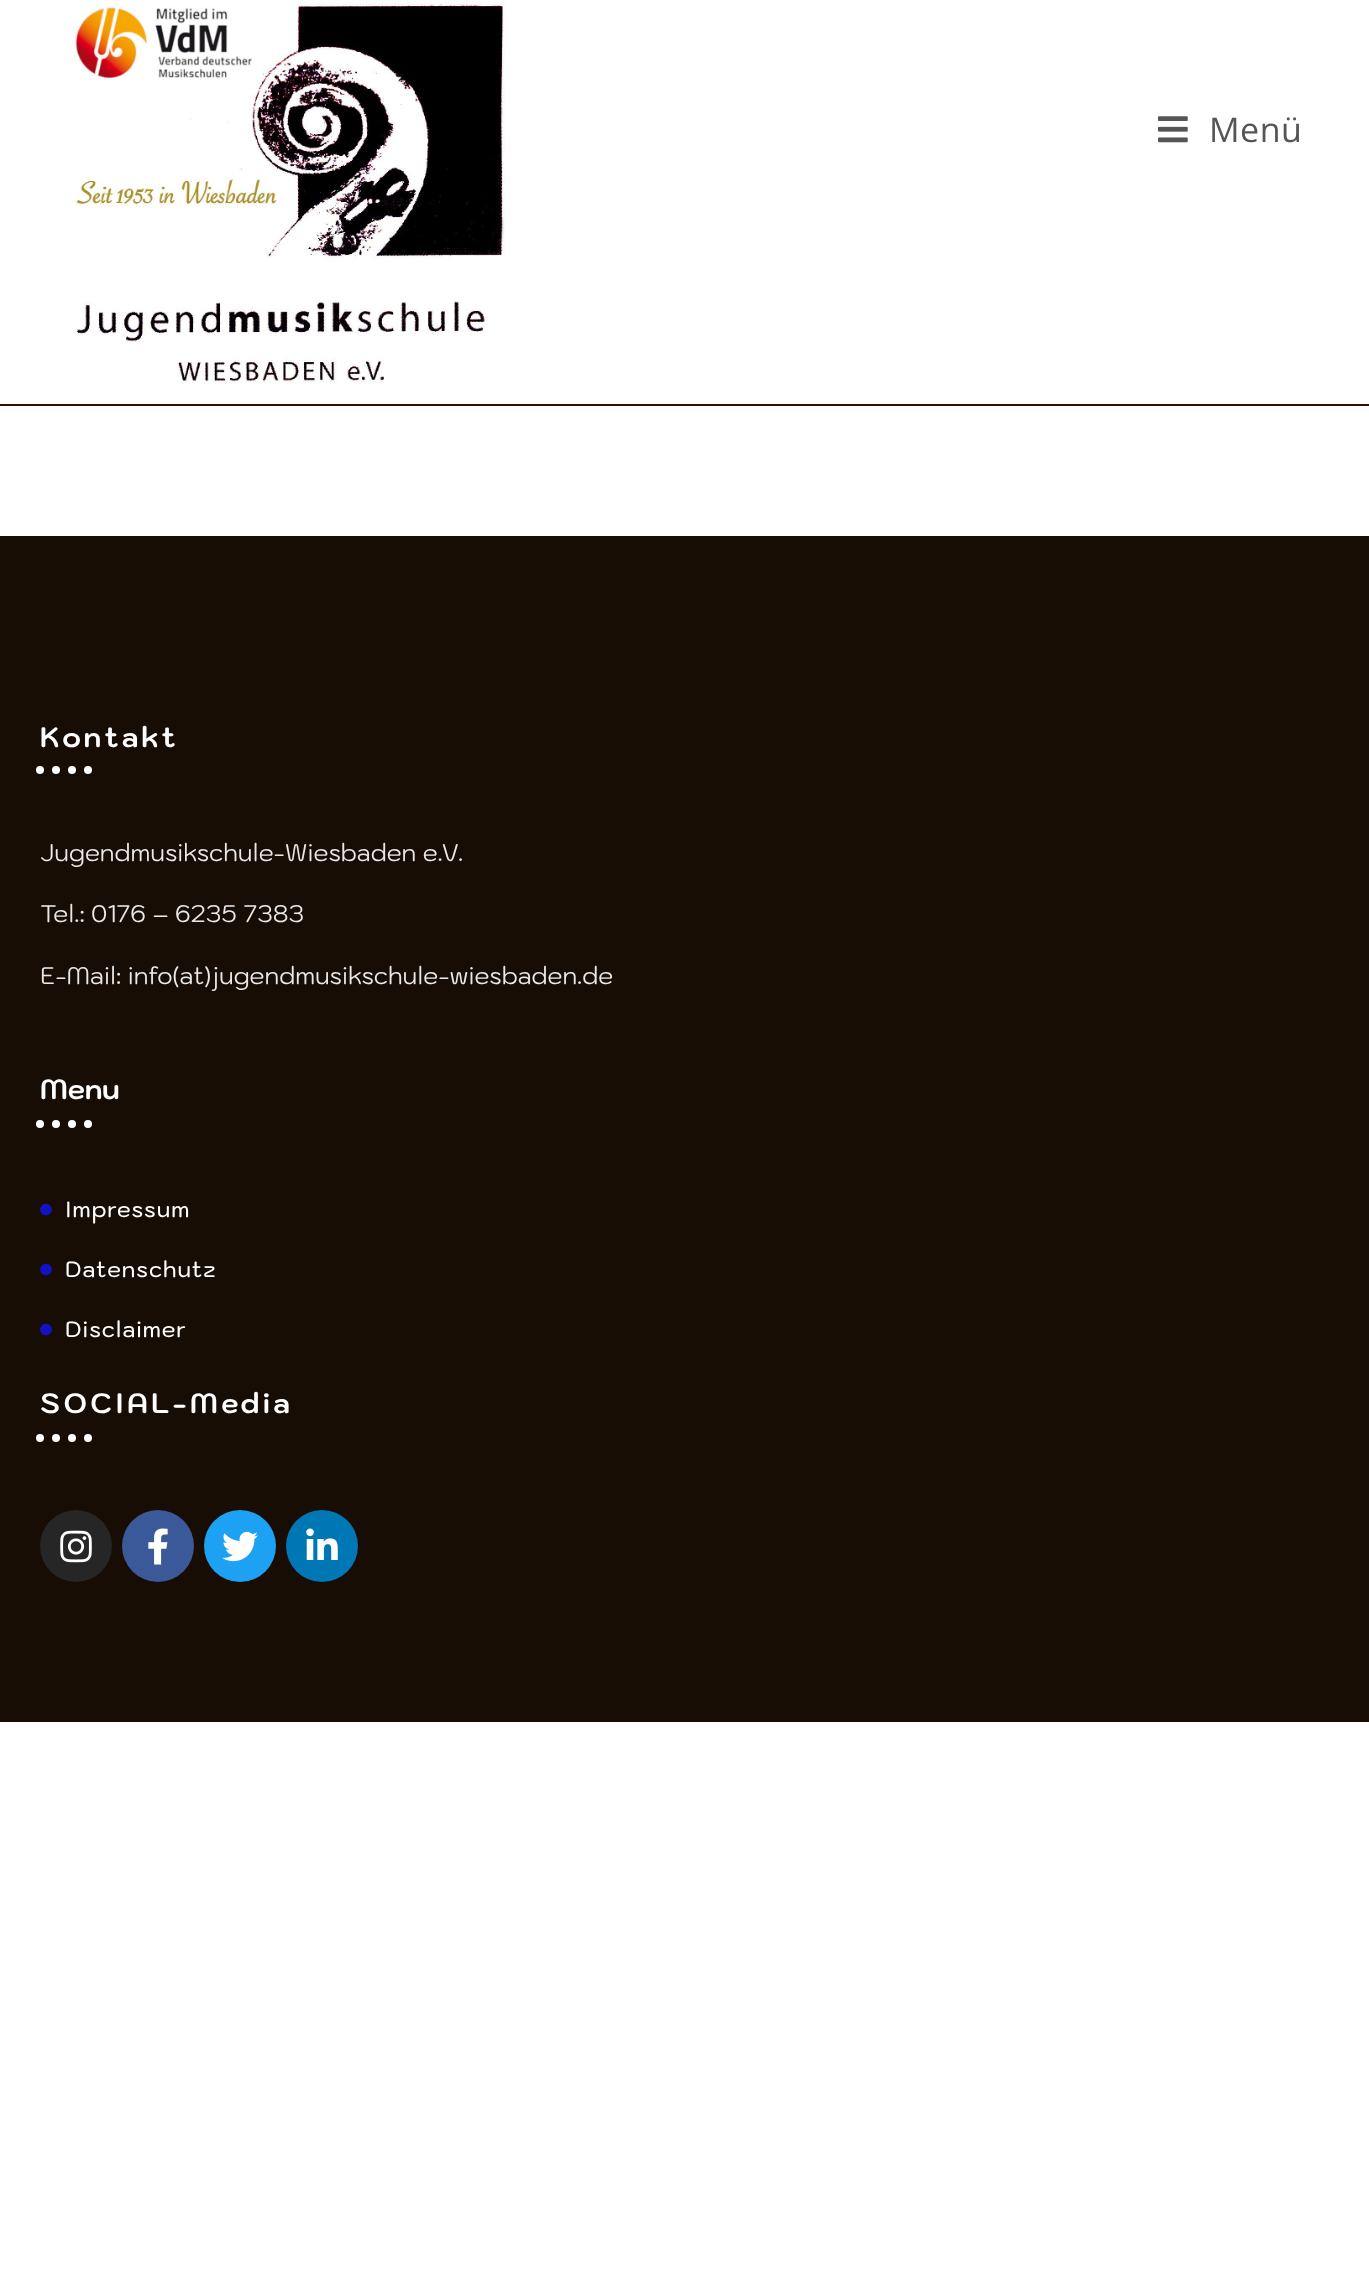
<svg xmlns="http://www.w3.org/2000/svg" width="1369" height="2290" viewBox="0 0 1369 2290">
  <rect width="100%" height="100%" fill="rgb(255,255,255)"/>
  <rect x="0" y="404" width="1369" height="2" fill="rgb(53,9,4)"/>
  <image x="75" y="0" width="430" height="383" href="pic1.png"/>
  <image x="1158" y="116" width="30" height="27" href="pic2.png"/>
  <text x="1209" y="142" font-family="Open Sans" font-size="34" letter-spacing="0.5" fill="rgb(85,85,85)">Menü</text>
  <rect x="0" y="536" width="1369" height="1186" fill="rgb(24,13,5)"/>
  <text x="40" y="747" font-family="Kodchasan" font-size="28" font-weight="bold" letter-spacing="3.4" fill="rgb(255,255,255)">Kontakt</text>
  <path d="M40 770H100" fill="none" stroke="rgb(255,255,255)" stroke-width="8" stroke-linecap="round" stroke-dasharray="0 16"/>
  <g font-family="Kodchasan" font-size="24" fill="rgb(234,233,233)">
    <text x="40" y="861">Jugendmusikschule-Wiesbaden e.V.</text>
    <text x="40" y="922">Tel.: 0176 – 6235 7383</text>
    <text x="40" y="984">E-Mail: info(at)jugendmusikschule-wiesbaden.de</text>
  </g>
  <text x="40" y="1099" font-family="Kodchasan" font-size="28" font-weight="bold" fill="rgb(255,255,255)">Menu</text>
  <path d="M40 1124H104" fill="none" stroke="rgb(255,255,255)" stroke-width="8" stroke-linecap="round" stroke-dasharray="0 16"/>
  <image x="40" y="1203" width="12" height="13" href="pic3.png"/>
  <text x="65" y="1217" font-family="Kodchasan" font-size="22" font-weight="500" letter-spacing="1" fill="rgb(255,255,255)">Impressum</text>
  <image x="40" y="1263" width="12" height="13" href="pic3.png"/>
  <text x="65" y="1277" font-family="Kodchasan" font-size="22" font-weight="500" letter-spacing="1" fill="rgb(255,255,255)">Datenschutz</text>
  <image x="40" y="1323" width="12" height="13" href="pic3.png"/>
  <text x="65" y="1337" font-family="Kodchasan" font-size="22" font-weight="500" letter-spacing="1" fill="rgb(255,255,255)">Disclaimer</text>
  <text x="40" y="1413" font-family="Kodchasan" font-size="28" font-weight="bold" letter-spacing="3.4" fill="rgb(255,255,255)">SOCIAL-Media</text>
  <path d="M40 1438H104" fill="none" stroke="rgb(255,255,255)" stroke-width="8" stroke-linecap="round" stroke-dasharray="0 16"/>
  <circle cx="76" cy="1546" r="36" fill="rgb(38,38,38)"/>
  <image x="60" y="1530" width="32" height="33" href="pic4.png"/>
  <circle cx="158" cy="1546" r="36" fill="rgb(59,89,152)"/>
  <image x="148" y="1528" width="20" height="37" href="pic5.png"/>
  <circle cx="240" cy="1546" r="36" fill="rgb(29,161,242)"/>
  <image x="222" y="1531" width="36" height="31" href="pic6.png"/>
  <circle cx="322" cy="1546" r="36" fill="rgb(0,119,181)"/>
  <image x="306" y="1528" width="32" height="32" href="pic7.png"/>
</svg>
